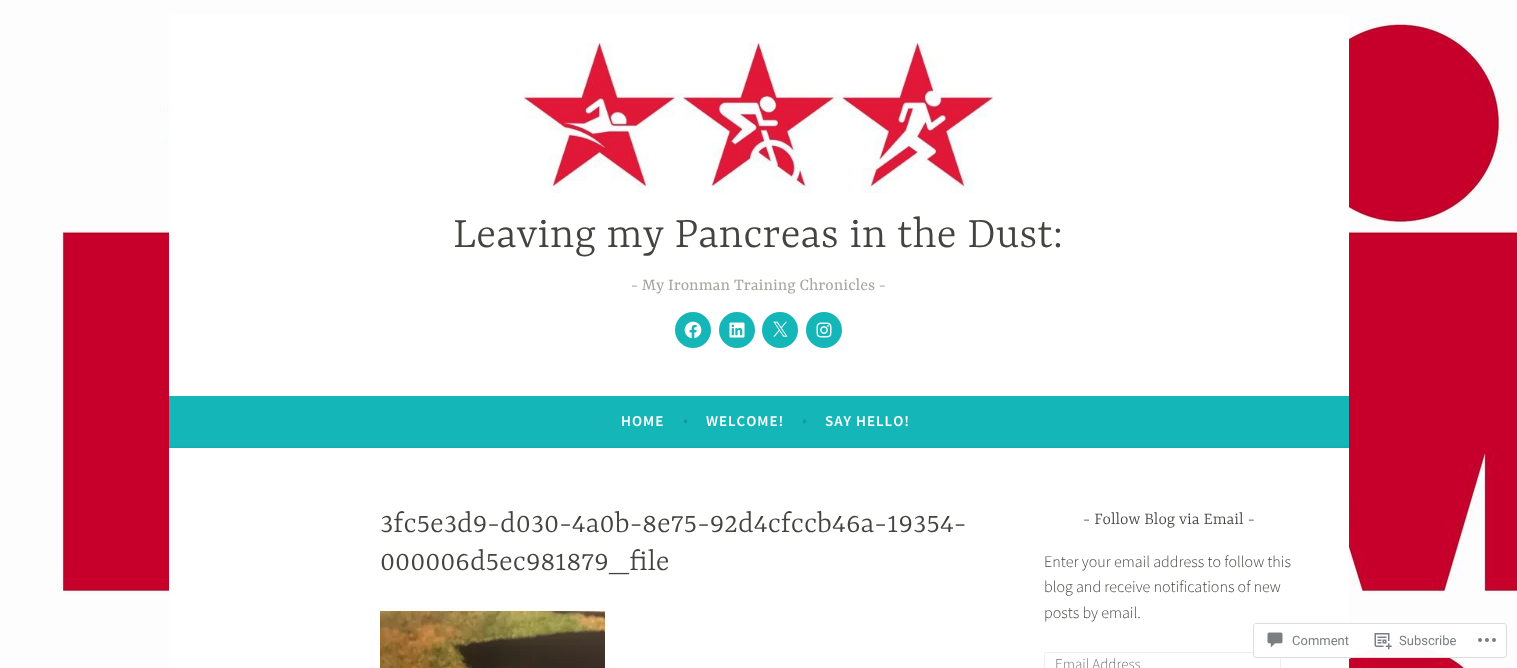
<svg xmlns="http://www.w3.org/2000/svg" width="1517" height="668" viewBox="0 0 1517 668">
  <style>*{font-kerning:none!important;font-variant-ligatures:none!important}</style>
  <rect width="100%" height="100%" fill="rgb(255,255,255)"/>
  <image x="0" y="0" width="1517" height="668" href="pic1.png"/>
  <rect x="169" y="15" width="1180" height="381" fill="rgb(255,255,255)"/>
  <image x="524" y="43" width="469" height="150" href="pic2.png"/>
  <text x="453" y="247" font-family="Yrsa" font-size="47" font-weight="300" fill="rgb(68,67,64)">Leaving my Pancreas in the Dust:</text>
  <text x="631" y="290" font-family="Yrsa" font-size="18" fill="rgb(168,166,161)">- My Ironman Training Chronicles -</text>
  <circle cx="693" cy="330" r="18" fill="rgb(21,182,184)"/>
  <image x="684" y="321" width="18" height="18" href="pic3.png"/>
  <circle cx="737" cy="330" r="18" fill="rgb(21,182,184)"/>
  <image x="729" y="322" width="16" height="16" href="pic4.png"/>
  <circle cx="780" cy="330" r="18" fill="rgb(21,182,184)"/>
  <image x="773" y="321" width="15" height="16" href="pic5.png"/>
  <circle cx="824" cy="330" r="18" fill="rgb(21,182,184)"/>
  <image x="816" y="322" width="16" height="16" href="pic6.png"/>
  <rect x="169" y="396" width="1180" height="50" fill="rgb(21,182,184)"/>
  <rect x="169" y="446" width="1180" height="2" fill="rgb(20,177,178)"/>
  <text x="621" y="426" font-family="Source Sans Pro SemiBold" font-size="15" font-weight="600" letter-spacing="1" fill="rgb(255,255,255)">HOME</text>
  <text x="683" y="426" font-family="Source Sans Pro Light" font-size="18" font-weight="300" fill="rgb(18,155,156)">•</text>
  <text x="706" y="426" font-family="Source Sans Pro SemiBold" font-size="15" font-weight="600" letter-spacing="1" fill="rgb(255,255,255)">WELCOME!</text>
  <text x="802" y="426" font-family="Source Sans Pro Light" font-size="18" font-weight="300" fill="rgb(18,155,156)">•</text>
  <text x="825" y="426" font-family="Source Sans Pro SemiBold" font-size="15" font-weight="600" letter-spacing="1" fill="rgb(255,255,255)">SAY HELLO!</text>
  <rect x="169" y="448" width="1180" height="220" fill="rgb(255,255,255)"/>
  <g font-family="Yrsa" font-size="32" font-weight="300" fill="rgb(68,67,64)">
    <text>
      <tspan x="380" y="532">3fc5e3d9-d030-4a0b-8e75-92d4cfccb46a-19354-</tspan>
      <tspan x="380" y="570">000006d5ec981879_file</tspan>
    </text>
  </g>
  <image x="380" y="611" width="225" height="57" href="pic7.png"/>
  <text x="1083" y="524" font-family="Yrsa" font-size="18" font-weight="300" fill="rgb(68,67,64)">- Follow Blog via Email -</text>
  <g font-family="Source Sans Pro Light" font-size="16" font-weight="300" fill="rgb(68,67,64)">
    <text>
      <tspan x="1044" y="567">Enter your email address to follow this</tspan>
      <tspan x="1044" y="592">blog and receive notifications of new</tspan>
      <tspan x="1044" y="618">posts by email.</tspan>
    </text>
  </g>
  <rect x="1044.5" y="652.5" width="236" height="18" rx="1.5" fill="none" stroke="rgb(238,238,238)"/>
  <text x="1055" y="669" font-family="Source Sans Pro Light" font-size="15" font-weight="300" fill="rgb(117,117,117)">Email Address</text>
  <rect x="1253" y="623" width="254" height="35" rx="3" fill="rgba(255,255,255,0.98)"/>
  <rect x="1253.5" y="623.5" width="253" height="34" rx="2.5" fill="none" stroke="rgba(220,220,222,0.98)"/>
  <image x="1267" y="632" width="16" height="16" href="pic8.png"/>
  <text x="1292" y="645" font-family="Roboto" font-size="13" fill="rgb(123,127,133)">Comment</text>
  <image x="1374" y="633" width="18" height="17" href="pic9.png"/>
  <text x="1399" y="645" font-family="Roboto" font-size="13" fill="rgb(123,127,133)">Subscribe</text>
  <image x="1478" y="638" width="18" height="4" href="pic10.png"/>
</svg>
